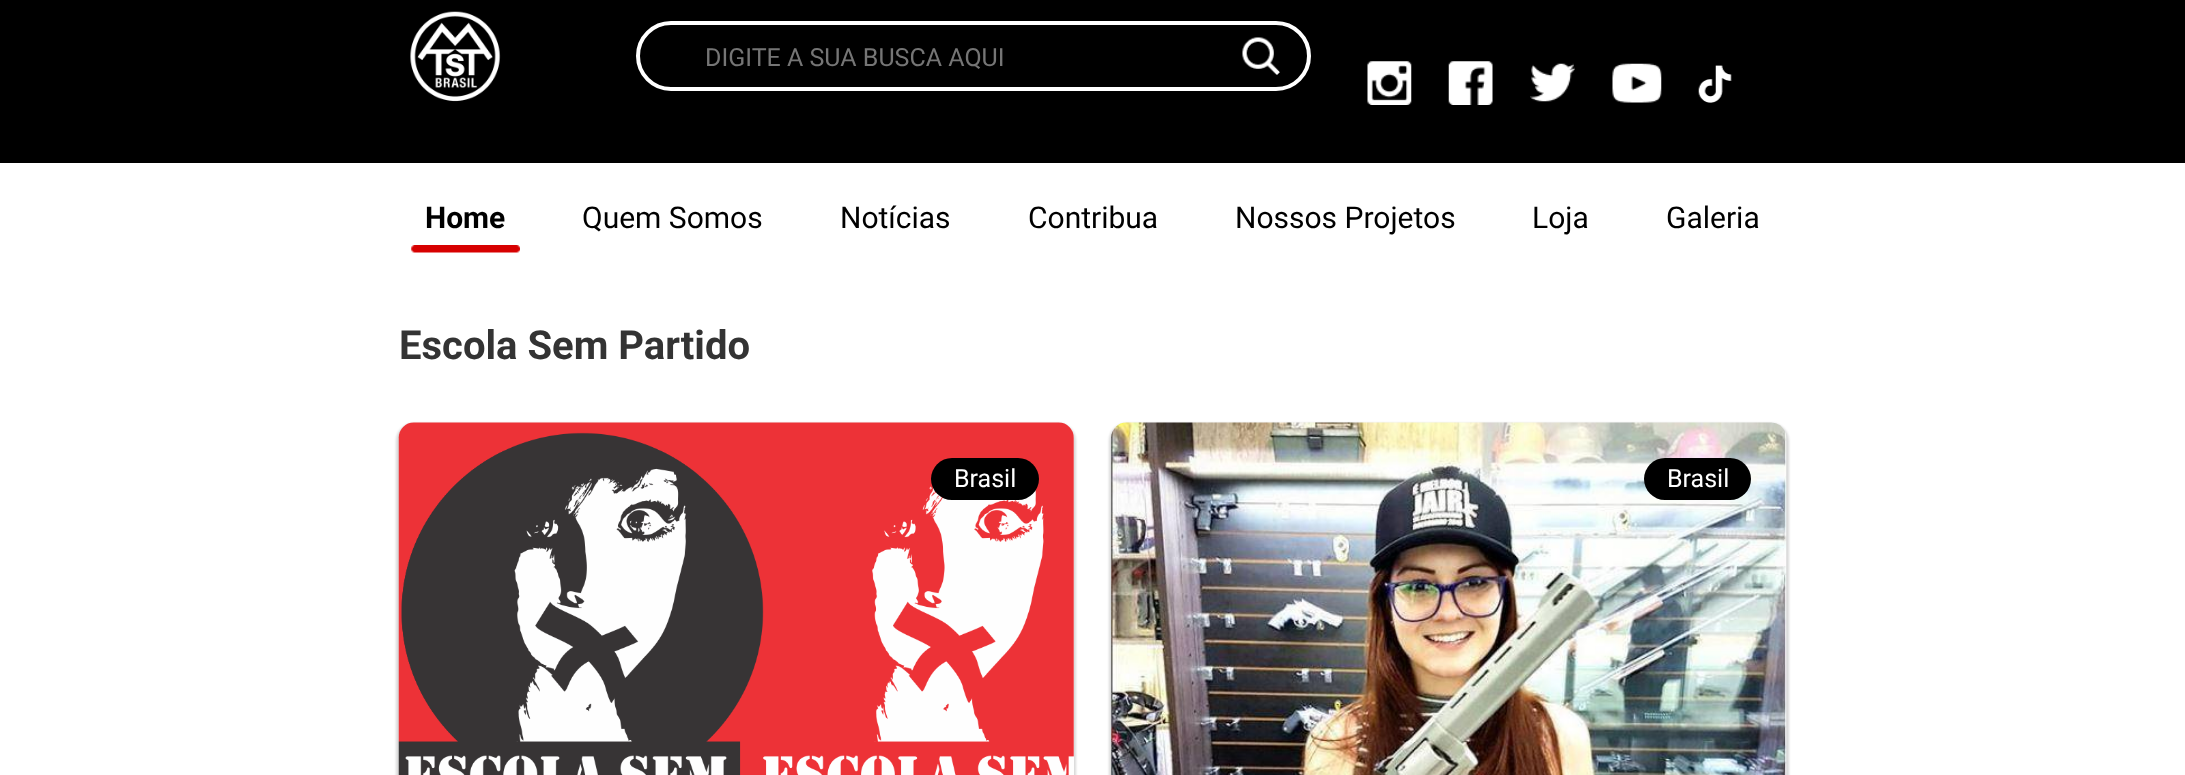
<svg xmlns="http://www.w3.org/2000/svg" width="2185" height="775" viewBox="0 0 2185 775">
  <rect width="100%" height="100%" fill="rgb(255,255,255)"/>
  <rect x="0" y="0" width="2185" height="163" fill="rgb(0,0,0)"/>
  <image x="410" y="11" width="91" height="91" href="pic1.png"/>
  <rect x="638" y="23" width="671" height="66" rx="33" fill="none" stroke="rgb(255,255,255)" stroke-width="4"/>
  <text x="705" y="66" font-family="Roboto" font-size="25" fill="rgb(117,117,117)">DIGITE A SUA BUSCA AQUI</text>
  <image x="1242" y="37" width="38" height="38" href="pic2.png"/>
  <image x="1367" y="61" width="45" height="44" href="pic3.png"/>
  <image x="1448" y="61" width="45" height="44" href="pic4.png"/>
  <image x="1530" y="63" width="45" height="39" href="pic5.png"/>
  <image x="1612" y="63" width="50" height="40" href="pic6.png"/>
  <image x="1698" y="65" width="34" height="38" href="pic7.png"/>
  <image x="411" y="245" width="109" height="8" href="pic8.png"/>
  <text x="425" y="228" font-family="Roboto" font-size="30" font-weight="bold" fill="rgb(0,0,0)">Home</text>
  <g font-family="Roboto" font-size="30" fill="rgb(0,0,0)">
    <text x="582" y="228">Quem Somos</text>
    <text x="840" y="228">Notícias</text>
    <text x="1028" y="228">Contribua</text>
    <text x="1235" y="228">Nossos Projetos</text>
    <text x="1532" y="228">Loja</text>
    <text x="1666" y="228">Galeria</text>
  </g>
  <text x="399" y="359" font-family="Roboto" font-size="40" font-weight="bold" fill="rgb(51,51,51)">Escola Sem Partido</text>
  <rect x="396" y="423" width="680" height="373" rx="18" fill="rgba(0,0,0,0.15)" filter="blur(1px)"/>
  <rect x="399" y="423" width="675" height="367" rx="15" fill="rgb(255,255,255)"/>
  <image x="398" y="422" width="676" height="353" href="pic9.png"/>
  <rect x="931" y="458" width="108" height="42" rx="21" fill="rgb(0,0,0)"/>
  <text x="954" y="487" font-family="Roboto" font-size="25" fill="rgb(255,255,255)">Brasil</text>
  <rect x="1109" y="423" width="680" height="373" rx="18" fill="rgba(0,0,0,0.15)" filter="blur(1px)"/>
  <rect x="1111" y="423" width="675" height="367" rx="15" fill="rgb(255,255,255)"/>
  <image x="1111" y="422" width="676" height="353" href="pic10.png"/>
  <rect x="1644" y="458" width="107" height="42" rx="21" fill="rgb(0,0,0)"/>
  <text x="1667" y="487" font-family="Roboto" font-size="25" fill="rgb(255,255,255)">Brasil</text>
</svg>
